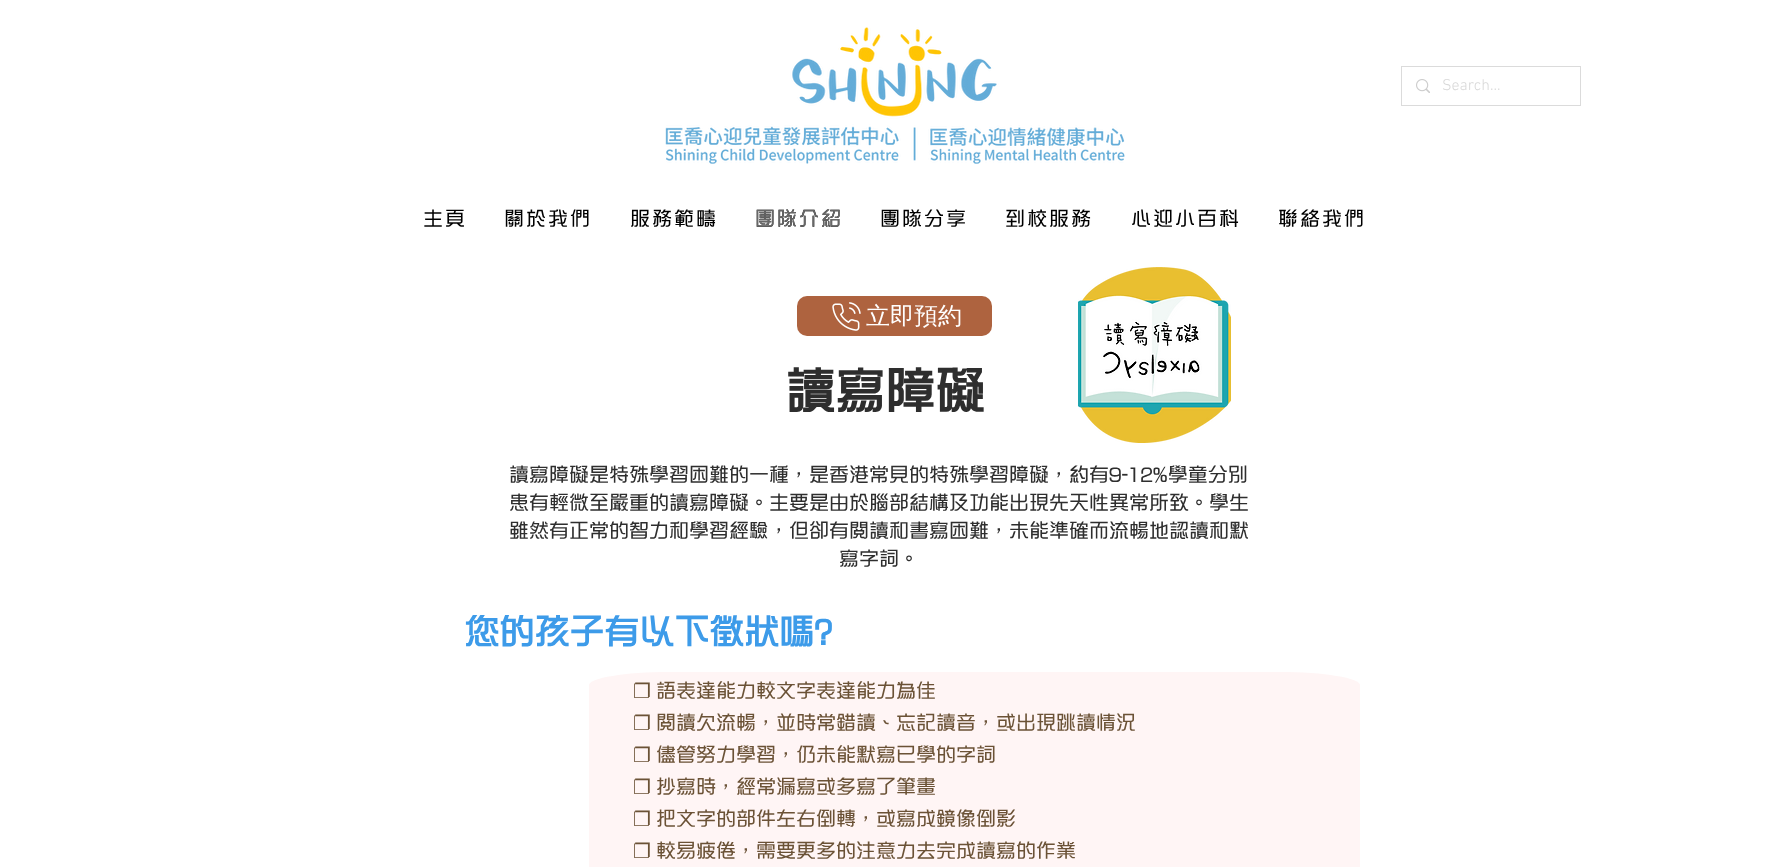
<svg xmlns="http://www.w3.org/2000/svg" width="1789" height="867" viewBox="0 0 1789 867">
  <rect width="100%" height="100%" fill="rgb(255,255,255)"/>
  <image x="665" y="27" width="460" height="137" href="pic1.png"/>
  <rect x="1401.5" y="66.5" width="179" height="39" fill="none" stroke="rgb(219,219,219)"/>
  <image x="1416" y="79" width="14" height="14" href="pic2.png"/>
  <text x="1442" y="90" font-family="'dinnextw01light'" font-size="16" font-weight="300" fill="rgb(216,216,216)">Search...</text>
  <g font-family="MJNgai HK" font-size="20" font-weight="500" letter-spacing="2" fill="rgb(0,0,0)">
    <text x="423" y="226">主頁</text>
    <text x="504" y="226">關於我們</text>
    <text x="630" y="226">服務範疇</text>
    <text x="755" y="226">團隊介紹</text>
    <text x="880" y="226">團隊分享</text>
    <text x="1005" y="226">到校服務</text>
    <text x="1131" y="226">心迎小百科</text>
    <text x="1278" y="226">聯絡我們</text>
  </g>
  <text x="755" y="226" font-family="MJNgai HK" font-size="20" font-weight="500" letter-spacing="2" fill="rgb(103,103,103)">團隊介紹</text>
  <rect x="797" y="296" width="195" height="40" rx="10" fill="rgb(174,99,63)"/>
  <image x="832" y="302" width="29" height="29" href="pic3.png"/>
  <text x="866" y="324" font-family="WenQuanYi Zen Hei" font-size="24" font-weight="500" fill="rgb(255,255,255)">立即預約</text>
  <image x="1078" y="267" width="153" height="176" href="pic4.png"/>
  <text x="785" y="410" font-family="MJNgai HK" font-size="50" font-weight="bold" fill="rgb(46,46,46)">讀寫障礙</text>
  <g font-family="MJNgai HK" font-size="20" font-weight="500" fill="rgb(46,46,46)">
    <text>
      <tspan x="509" y="482">讀寫障礙是特殊學習困難的一種，是香港常見的特殊學習障礙，約有9-12%學童分別</tspan>
      <tspan x="509" y="510">患有輕微至嚴重的讀寫障礙。主要是由於腦部結構及功能出現先天性異常所致。學生</tspan>
      <tspan x="509" y="538">雖然有正常的智力和學習經驗，但卻有閱讀和書寫困難，未能準確而流暢地認讀和默</tspan>
    </text>
    <text x="839" y="566">寫字詞。</text>
  </g>
  <text x="464" y="645" font-family="MJNgai HK" font-size="35" font-weight="bold" fill="rgb(61,155,233)">您的孩子有以下徵狀嗎?</text>
  <path d="M1280 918H669C625 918 589 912 589 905V685C589 678 625 672 669 672H1280C1324 672 1360 678 1360 685V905C1360 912 1324 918 1280 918Z" fill="rgb(255,245,245)"/>
  <text x="633" y="698" font-family="DejaVu Sans" font-size="20" fill="rgb(107,82,54)">❐</text>
  <text x="656" y="698" font-family="MJNgai HK" font-size="20" font-weight="500" fill="rgb(107,82,54)">語表達能力較文字表達能力為佳</text>
  <text x="633" y="730" font-family="DejaVu Sans" font-size="20" fill="rgb(107,82,54)">❐</text>
  <text x="656" y="730" font-family="MJNgai HK" font-size="20" font-weight="500" fill="rgb(107,82,54)">閱讀欠流暢，並時常錯讀、忘記讀音，或出現跳讀情況</text>
  <text x="633" y="762" font-family="DejaVu Sans" font-size="20" fill="rgb(107,82,54)">❐</text>
  <text x="656" y="762" font-family="MJNgai HK" font-size="20" font-weight="500" fill="rgb(107,82,54)">儘管努力學習，仍未能默寫已學的字詞</text>
  <text x="633" y="794" font-family="DejaVu Sans" font-size="20" fill="rgb(107,82,54)">❐</text>
  <text x="656" y="794" font-family="MJNgai HK" font-size="20" font-weight="500" fill="rgb(107,82,54)">抄寫時，經常漏寫或多寫了筆畫</text>
  <text x="633" y="826" font-family="DejaVu Sans" font-size="20" fill="rgb(107,82,54)">❐</text>
  <text x="656" y="826" font-family="MJNgai HK" font-size="20" font-weight="500" fill="rgb(107,82,54)">把文字的部件左右倒轉，或寫成鏡像倒影</text>
  <text x="633" y="858" font-family="DejaVu Sans" font-size="20" fill="rgb(107,82,54)">❐</text>
  <text x="656" y="858" font-family="MJNgai HK" font-size="20" font-weight="500" fill="rgb(107,82,54)">較易疲倦，需要更多的注意力去完成讀寫的作業</text>
</svg>
